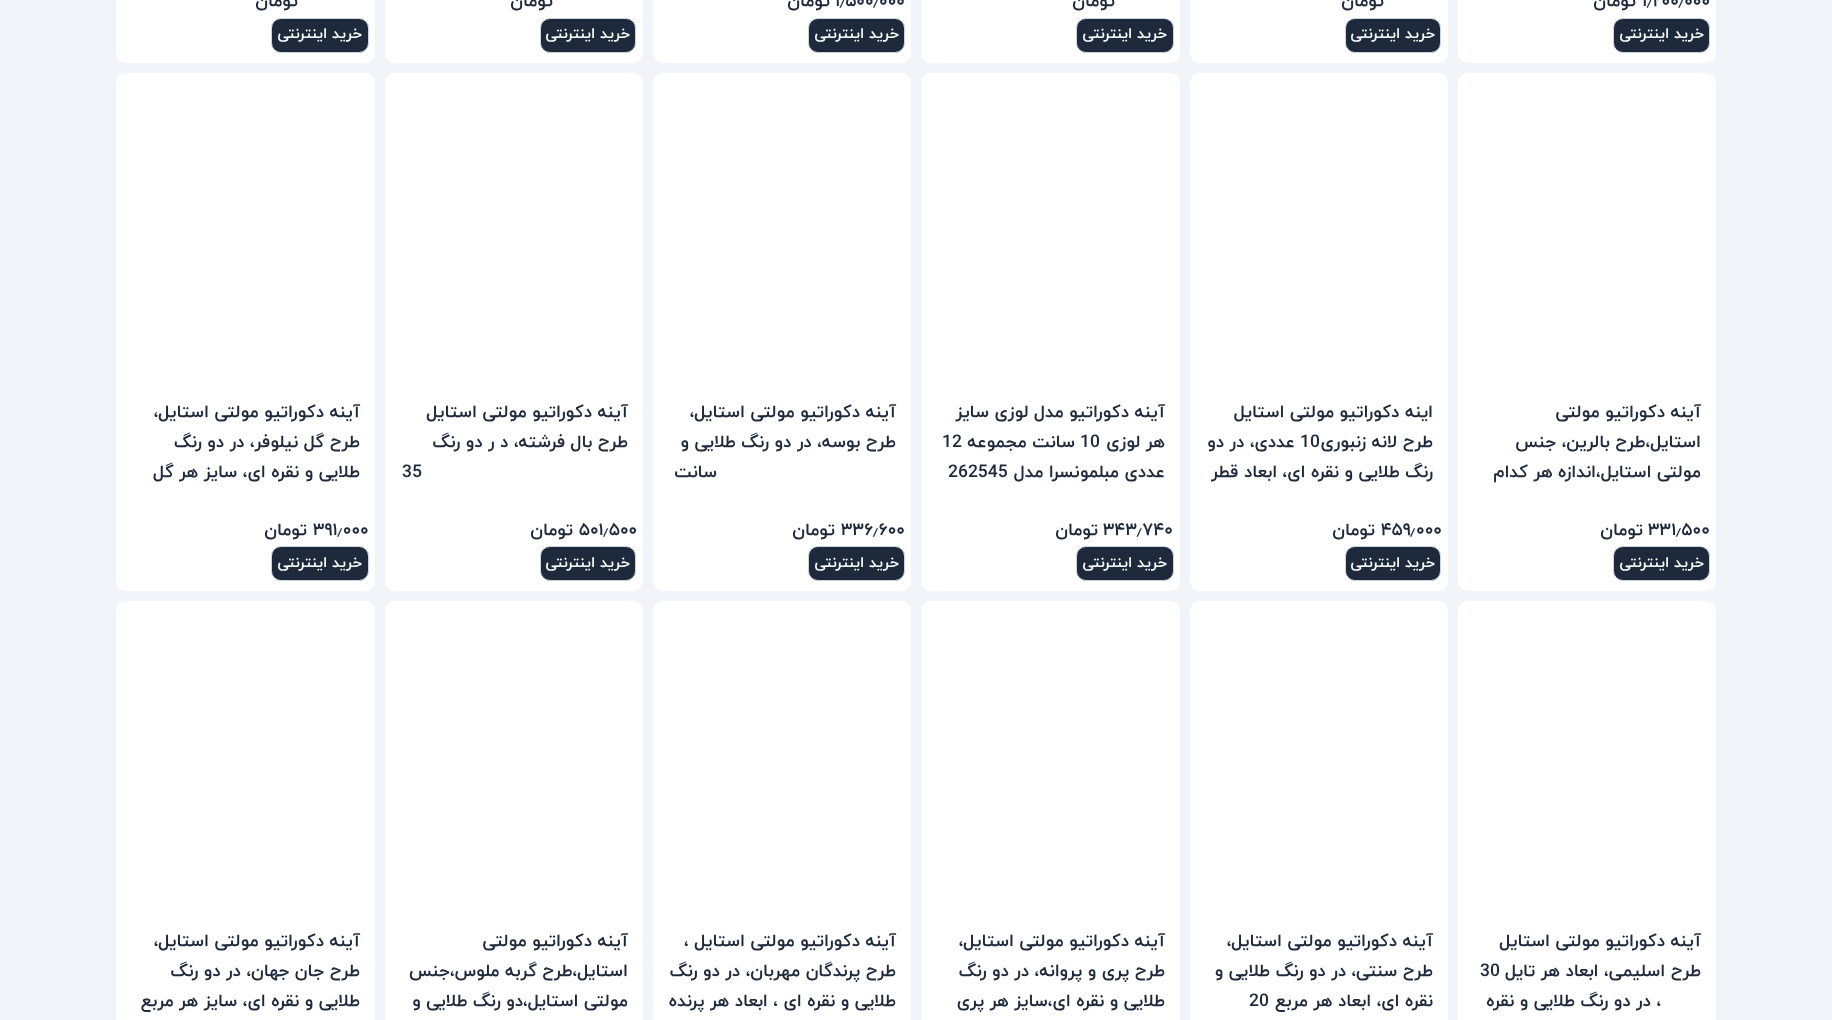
<svg xmlns="http://www.w3.org/2000/svg" width="1832" height="1020" viewBox="0 0 1832 1020">
  <rect width="100%" height="100%" fill="rgb(241,245,249)"/>
  <rect x="1458" y="-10" width="258" height="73" rx="10" fill="rgb(255,255,255)"/>
  <text x="1642" y="6" font-family="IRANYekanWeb" font-size="17.5" font-weight="bold" fill="rgb(30,41,59)">۱٫۲۰۰٫۰۰۰</text>
  <text x="1636" y="6" font-family="IRANYekanWeb" font-size="17.5" font-weight="bold" direction="rtl" fill="rgb(30,41,59)">تومان</text>
  <rect x="1613.5" y="18.5" width="96" height="34" rx="9.5" fill="rgb(30,41,59)" stroke="rgb(203,213,225)"/>
  <text x="1704" y="38" font-family="IRANYekanWeb" font-size="15" font-weight="bold" direction="rtl" fill="rgb(248,250,252)">خرید اینترنتی</text>
  <rect x="1190" y="-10" width="258" height="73" rx="10" fill="rgb(255,255,255)"/>
  <text x="1384" y="6" font-family="IRANYekanWeb" font-size="17.5" font-weight="bold" direction="rtl" fill="rgb(30,41,59)">تومان</text>
  <rect x="1345.5" y="18.5" width="95" height="34" rx="9.5" fill="rgb(30,41,59)" stroke="rgb(203,213,225)"/>
  <text x="1435" y="38" font-family="IRANYekanWeb" font-size="15" font-weight="bold" direction="rtl" fill="rgb(248,250,252)">خرید اینترنتی</text>
  <rect x="921" y="-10" width="259" height="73" rx="10" fill="rgb(255,255,255)"/>
  <text x="1115" y="6" font-family="IRANYekanWeb" font-size="17.5" font-weight="bold" direction="rtl" fill="rgb(30,41,59)">تومان</text>
  <rect x="1076.5" y="18.5" width="97" height="34" rx="9.5" fill="rgb(30,41,59)" stroke="rgb(203,213,225)"/>
  <text x="1167" y="38" font-family="IRANYekanWeb" font-size="15" font-weight="bold" direction="rtl" fill="rgb(248,250,252)">خرید اینترنتی</text>
  <rect x="653" y="-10" width="258" height="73" rx="10" fill="rgb(255,255,255)"/>
  <text x="835" y="6" font-family="IRANYekanWeb" font-size="17.5" font-weight="bold" fill="rgb(30,41,59)">۱٫۵۰۰٫۰۰۰</text>
  <text x="830" y="6" font-family="IRANYekanWeb" font-size="17.5" font-weight="bold" direction="rtl" fill="rgb(30,41,59)">تومان</text>
  <rect x="808.5" y="18.5" width="96" height="34" rx="9.5" fill="rgb(30,41,59)" stroke="rgb(203,213,225)"/>
  <text x="899" y="38" font-family="IRANYekanWeb" font-size="15" font-weight="bold" direction="rtl" fill="rgb(248,250,252)">خرید اینترنتی</text>
  <rect x="385" y="-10" width="258" height="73" rx="10" fill="rgb(255,255,255)"/>
  <text x="553" y="6" font-family="IRANYekanWeb" font-size="17.5" font-weight="bold" direction="rtl" fill="rgb(30,41,59)">تومان</text>
  <rect x="540.5" y="18.5" width="95" height="34" rx="9.5" fill="rgb(30,41,59)" stroke="rgb(203,213,225)"/>
  <text x="630" y="38" font-family="IRANYekanWeb" font-size="15" font-weight="bold" direction="rtl" fill="rgb(248,250,252)">خرید اینترنتی</text>
  <rect x="116" y="-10" width="259" height="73" rx="10" fill="rgb(255,255,255)"/>
  <text x="298" y="6" font-family="IRANYekanWeb" font-size="17.5" font-weight="bold" direction="rtl" fill="rgb(30,41,59)">تومان</text>
  <rect x="271.5" y="18.5" width="97" height="34" rx="9.5" fill="rgb(30,41,59)" stroke="rgb(203,213,225)"/>
  <text x="362" y="38" font-family="IRANYekanWeb" font-size="15" font-weight="bold" direction="rtl" fill="rgb(248,250,252)">خرید اینترنتی</text>
  <rect x="1458" y="73" width="258" height="518" rx="10" fill="rgb(255,255,255)"/>
  <g font-family="IRANYekanWeb" font-size="17.5" font-weight="bold" direction="rtl" fill="rgb(30,41,59)">
    <text>
      <tspan x="1701" y="417">آینه دکوراتیو مولتی</tspan>
      <tspan x="1701" y="447">استایل،طرح بالرین، جنس</tspan>
      <tspan x="1701" y="477">مولتی استایل،اندازه هر کدام</tspan>
    </text>
  </g>
  <text x="1648" y="535" font-family="IRANYekanWeb" font-size="17.5" font-weight="bold" fill="rgb(30,41,59)">۳۳۱٫۵۰۰</text>
  <text x="1643" y="535" font-family="IRANYekanWeb" font-size="17.5" font-weight="bold" direction="rtl" fill="rgb(30,41,59)">تومان</text>
  <rect x="1613.5" y="546.5" width="96" height="34" rx="9.5" fill="rgb(30,41,59)" stroke="rgb(203,213,225)"/>
  <text x="1704" y="567" font-family="IRANYekanWeb" font-size="15" font-weight="bold" direction="rtl" fill="rgb(248,250,252)">خرید اینترنتی</text>
  <rect x="1190" y="73" width="258" height="518" rx="10" fill="rgb(255,255,255)"/>
  <g font-family="IRANYekanWeb" font-size="17.5" font-weight="bold" direction="rtl" fill="rgb(30,41,59)">
    <text>
      <tspan x="1433" y="417">اینه دکوراتیو مولتی استایل</tspan>
      <tspan x="1433" y="447">طرح لانه زنبوری</tspan>
    </text>
  </g>
  <text x="1300" y="447" font-family="IRANYekanWeb" font-size="17.5" font-weight="bold" fill="rgb(30,41,59)">10</text>
  <g font-family="IRANYekanWeb" font-size="17.5" font-weight="bold" direction="rtl" fill="rgb(30,41,59)">
    <text x="1295" y="447">عددی، در دو</text>
    <text x="1433" y="477">رنگ طلایی و نقره ای، ابعاد قطر</text>
  </g>
  <text x="1381" y="535" font-family="IRANYekanWeb" font-size="17.5" font-weight="bold" fill="rgb(30,41,59)">۴۵۹٫۰۰۰</text>
  <text x="1375" y="535" font-family="IRANYekanWeb" font-size="17.5" font-weight="bold" direction="rtl" fill="rgb(30,41,59)">تومان</text>
  <rect x="1345.5" y="546.5" width="95" height="34" rx="9.5" fill="rgb(30,41,59)" stroke="rgb(203,213,225)"/>
  <text x="1435" y="567" font-family="IRANYekanWeb" font-size="15" font-weight="bold" direction="rtl" fill="rgb(248,250,252)">خرید اینترنتی</text>
  <rect x="921" y="73" width="259" height="518" rx="10" fill="rgb(255,255,255)"/>
  <g font-family="IRANYekanWeb" font-size="17.5" font-weight="bold" direction="rtl" fill="rgb(30,41,59)">
    <text>
      <tspan x="1165" y="417">آینه دکوراتیو مدل لوزی سایز</tspan>
      <tspan x="1165" y="447">هر لوزی</tspan>
    </text>
  </g>
  <text x="1080" y="447" font-family="IRANYekanWeb" font-size="17.5" font-weight="bold" fill="rgb(30,41,59)">10</text>
  <text x="1075" y="447" font-family="IRANYekanWeb" font-size="17.5" font-weight="bold" direction="rtl" fill="rgb(30,41,59)">سانت مجموعه</text>
  <text x="942" y="447" font-family="IRANYekanWeb" font-size="17.5" font-weight="bold" fill="rgb(30,41,59)">12</text>
  <text x="1165" y="477" font-family="IRANYekanWeb" font-size="17.5" font-weight="bold" direction="rtl" fill="rgb(30,41,59)">عددی مبلمونسرا مدل</text>
  <g font-family="IRANYekanWeb" font-size="17.5" font-weight="bold" fill="rgb(30,41,59)">
    <text x="948" y="477">262545</text>
    <text x="1103" y="535">۳۴۳٫۷۴۰</text>
  </g>
  <text x="1098" y="535" font-family="IRANYekanWeb" font-size="17.5" font-weight="bold" direction="rtl" fill="rgb(30,41,59)">تومان</text>
  <rect x="1076.5" y="546.5" width="97" height="34" rx="9.5" fill="rgb(30,41,59)" stroke="rgb(203,213,225)"/>
  <text x="1167" y="567" font-family="IRANYekanWeb" font-size="15" font-weight="bold" direction="rtl" fill="rgb(248,250,252)">خرید اینترنتی</text>
  <rect x="653" y="73" width="258" height="518" rx="10" fill="rgb(255,255,255)"/>
  <g font-family="IRANYekanWeb" font-size="17.5" font-weight="bold" direction="rtl" fill="rgb(30,41,59)">
    <text>
      <tspan x="896" y="417">آینه دکوراتیو مولتی استایل،</tspan>
      <tspan x="896" y="447">طرح بوسه، در دو رنگ طلایی و</tspan>
    </text>
    <text x="717" y="477">سانت</text>
  </g>
  <text x="841" y="535" font-family="IRANYekanWeb" font-size="17.5" font-weight="bold" fill="rgb(30,41,59)">۳۳۶٫۶۰۰</text>
  <text x="835" y="535" font-family="IRANYekanWeb" font-size="17.5" font-weight="bold" direction="rtl" fill="rgb(30,41,59)">تومان</text>
  <rect x="808.5" y="546.5" width="96" height="34" rx="9.5" fill="rgb(30,41,59)" stroke="rgb(203,213,225)"/>
  <text x="899" y="567" font-family="IRANYekanWeb" font-size="15" font-weight="bold" direction="rtl" fill="rgb(248,250,252)">خرید اینترنتی</text>
  <rect x="385" y="73" width="258" height="518" rx="10" fill="rgb(255,255,255)"/>
  <g font-family="IRANYekanWeb" font-size="17.5" font-weight="bold" direction="rtl" fill="rgb(30,41,59)">
    <text>
      <tspan x="628" y="417">آینه دکوراتیو مولتی استایل</tspan>
      <tspan x="628" y="447">طرح بال فرشته، د ر دو رنگ</tspan>
    </text>
  </g>
  <g font-family="IRANYekanWeb" font-size="17.5" font-weight="bold" fill="rgb(30,41,59)">
    <text x="402" y="477">35</text>
    <text x="579" y="535">۵۰۱٫۵۰۰</text>
  </g>
  <text x="573" y="535" font-family="IRANYekanWeb" font-size="17.5" font-weight="bold" direction="rtl" fill="rgb(30,41,59)">تومان</text>
  <rect x="540.5" y="546.5" width="95" height="34" rx="9.5" fill="rgb(30,41,59)" stroke="rgb(203,213,225)"/>
  <text x="630" y="567" font-family="IRANYekanWeb" font-size="15" font-weight="bold" direction="rtl" fill="rgb(248,250,252)">خرید اینترنتی</text>
  <rect x="116" y="73" width="259" height="518" rx="10" fill="rgb(255,255,255)"/>
  <g font-family="IRANYekanWeb" font-size="17.5" font-weight="bold" direction="rtl" fill="rgb(30,41,59)">
    <text>
      <tspan x="360" y="417">آینه دکوراتیو مولتی استایل،</tspan>
      <tspan x="360" y="447">طرح گل نیلوفر، در دو رنگ</tspan>
      <tspan x="360" y="477">طلایی و نقره ای، سایز هر گل</tspan>
    </text>
  </g>
  <text x="313" y="535" font-family="IRANYekanWeb" font-size="17.5" font-weight="bold" fill="rgb(30,41,59)">۳۹۱٫۰۰۰</text>
  <text x="307" y="535" font-family="IRANYekanWeb" font-size="17.5" font-weight="bold" direction="rtl" fill="rgb(30,41,59)">تومان</text>
  <rect x="271.5" y="546.5" width="97" height="34" rx="9.5" fill="rgb(30,41,59)" stroke="rgb(203,213,225)"/>
  <text x="362" y="567" font-family="IRANYekanWeb" font-size="15" font-weight="bold" direction="rtl" fill="rgb(248,250,252)">خرید اینترنتی</text>
  <rect x="1458" y="601" width="258" height="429" rx="10" fill="rgb(255,255,255)"/>
  <g font-family="IRANYekanWeb" font-size="17.5" font-weight="bold" direction="rtl" fill="rgb(30,41,59)">
    <text>
      <tspan x="1701" y="946">آینه دکوراتیو مولتی استایل</tspan>
      <tspan x="1701" y="976">طرح اسلیمی، ابعاد هر تایل</tspan>
    </text>
  </g>
  <text x="1480" y="976" font-family="IRANYekanWeb" font-size="17.5" font-weight="bold" fill="rgb(30,41,59)">30</text>
  <text x="1661" y="1006" font-family="IRANYekanWeb" font-size="17.5" font-weight="bold" direction="rtl" fill="rgb(30,41,59)">، در دو رنگ طلایی و نقره</text>
  <rect x="1190" y="601" width="258" height="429" rx="10" fill="rgb(255,255,255)"/>
  <g font-family="IRANYekanWeb" font-size="17.5" font-weight="bold" direction="rtl" fill="rgb(30,41,59)">
    <text>
      <tspan x="1433" y="946">آینه دکوراتیو مولتی استایل،</tspan>
      <tspan x="1433" y="976">طرح سنتی، در دو رنگ طلایی و</tspan>
      <tspan x="1433" y="1006">نقره ای، ابعاد هر مربع</tspan>
    </text>
  </g>
  <text x="1249" y="1006" font-family="IRANYekanWeb" font-size="17.5" font-weight="bold" fill="rgb(30,41,59)">20</text>
  <rect x="921" y="601" width="259" height="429" rx="10" fill="rgb(255,255,255)"/>
  <g font-family="IRANYekanWeb" font-size="17.5" font-weight="bold" direction="rtl" fill="rgb(30,41,59)">
    <text>
      <tspan x="1165" y="946">آینه دکوراتیو مولتی استایل،</tspan>
      <tspan x="1165" y="976">طرح پری و پروانه، در دو رنگ</tspan>
      <tspan x="1165" y="1006">طلایی و نقره ای،سایز هر پری</tspan>
    </text>
  </g>
  <rect x="653" y="601" width="258" height="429" rx="10" fill="rgb(255,255,255)"/>
  <g font-family="IRANYekanWeb" font-size="17.5" font-weight="bold" direction="rtl" fill="rgb(30,41,59)">
    <text>
      <tspan x="896" y="946">آینه دکوراتیو مولتی استایل ،</tspan>
      <tspan x="896" y="976">طرح پرندگان مهربان، در دو رنگ</tspan>
      <tspan x="896" y="1006">طلایی و نقره ای ، ابعاد هر پرنده</tspan>
    </text>
  </g>
  <rect x="385" y="601" width="258" height="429" rx="10" fill="rgb(255,255,255)"/>
  <g font-family="IRANYekanWeb" font-size="17.5" font-weight="bold" direction="rtl" fill="rgb(30,41,59)">
    <text>
      <tspan x="628" y="946">آینه دکوراتیو مولتی</tspan>
      <tspan x="628" y="976">استایل،طرح گربه ملوس،جنس</tspan>
      <tspan x="628" y="1006">مولتی استایل،دو رنگ طلایی و</tspan>
    </text>
  </g>
  <rect x="116" y="601" width="259" height="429" rx="10" fill="rgb(255,255,255)"/>
  <g font-family="IRANYekanWeb" font-size="17.5" font-weight="bold" direction="rtl" fill="rgb(30,41,59)">
    <text>
      <tspan x="360" y="946">آینه دکوراتیو مولتی استایل،</tspan>
      <tspan x="360" y="976">طرح جان جهان، در دو رنگ</tspan>
      <tspan x="360" y="1006">طلایی و نقره ای، سایز هر مربع</tspan>
    </text>
  </g>
</svg>
